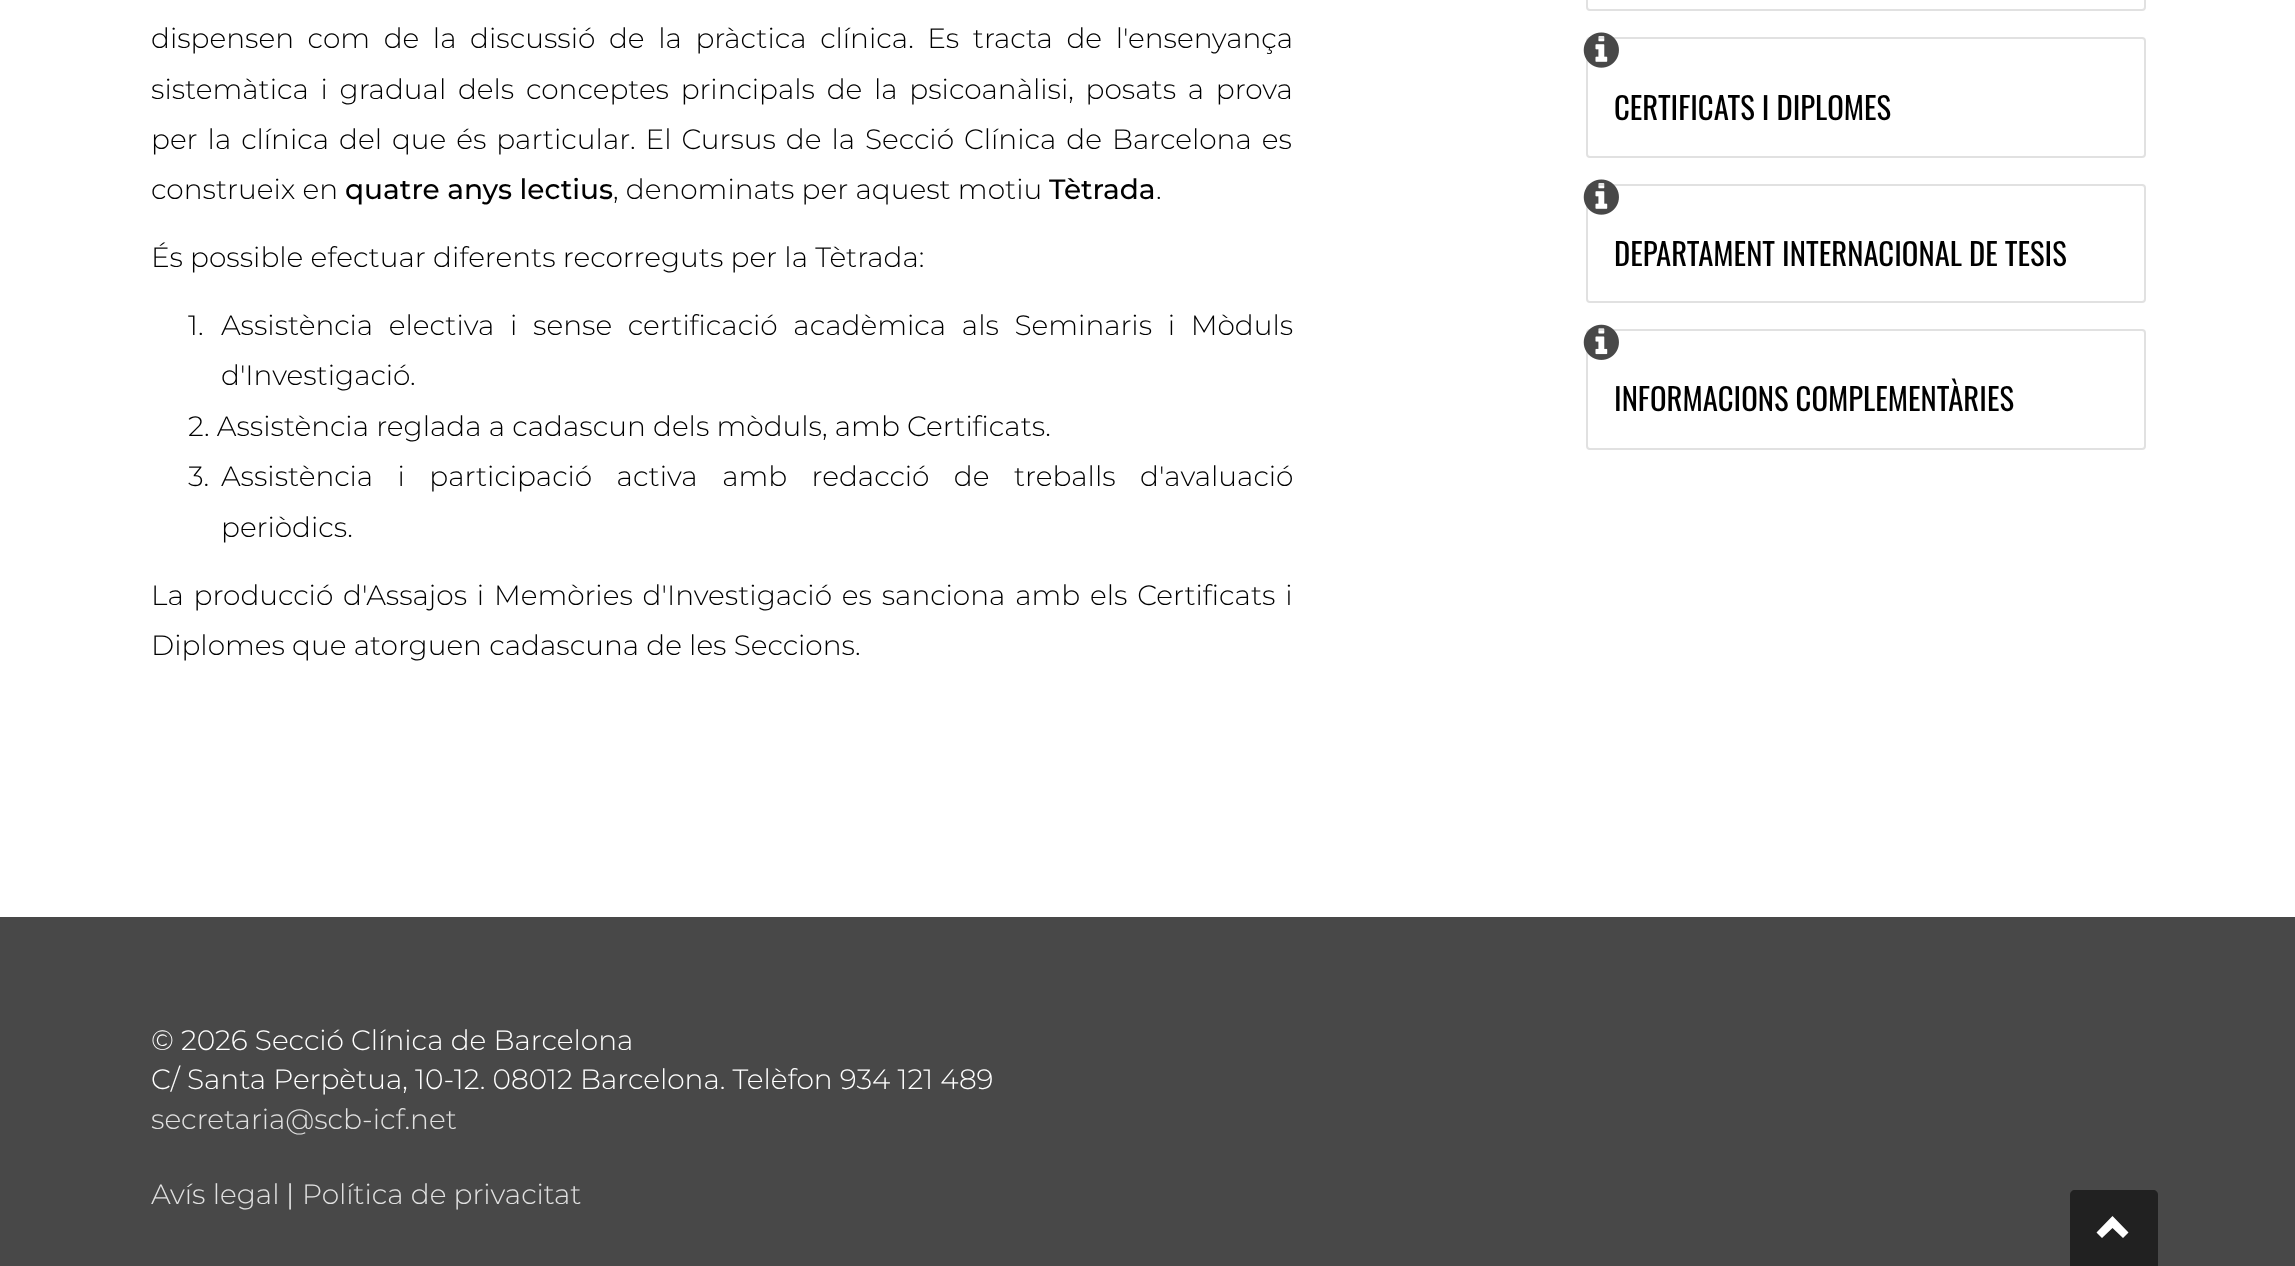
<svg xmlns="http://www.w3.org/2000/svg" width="2295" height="1266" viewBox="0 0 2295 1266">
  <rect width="100%" height="100%" fill="rgb(255,255,255)"/>
  <g font-family="Montserrat" font-size="28" font-weight="300" fill="rgb(0,0,0)">
    <text>
      <tspan x="151" y="48" word-spacing="6.4">dispensen com de la discussió de la pràctica clínica. Es tracta de l'ensenyança</tspan>
      <tspan x="151" y="99" word-spacing="4.5">sistemàtica i gradual dels conceptes principals de la psicoanàlisi, posats a prova</tspan>
      <tspan x="151" y="149" word-spacing="2.75">per la clínica del que és particular. El Cursus de la Secció Clínica de Barcelona es</tspan>
      <tspan x="151" y="199">construeix en</tspan>
    </text>
  </g>
  <text x="345" y="199" font-family="Montserrat" font-size="28" font-weight="500" fill="rgb(0,0,0)">quatre anys lectius</text>
  <text x="613" y="199" font-family="Montserrat" font-size="28" font-weight="300" fill="rgb(0,0,0)">, denominats per aquest motiu</text>
  <text x="1049" y="199" font-family="Montserrat" font-size="28" font-weight="500" fill="rgb(0,0,0)">Tètrada</text>
  <g font-family="Montserrat" font-size="28" font-weight="300" fill="rgb(0,0,0)">
    <text x="1156" y="199">.</text>
    <text x="151" y="267">És possible efectuar diferents recorreguts per la Tètrada:</text>
    <text x="188" y="335">1.</text>
    <text>
      <tspan x="221" y="335" word-spacing="8.5">Assistència electiva i sense certificació acadèmica als Seminaris i Mòduls</tspan>
      <tspan x="221" y="385">d'Investigació.</tspan>
    </text>
    <text>
      <tspan x="188" y="436">2. Assistència reglada a cadascun dels mòduls, amb Certificats.</tspan>
      <tspan x="188" y="486">3.</tspan>
    </text>
    <text>
      <tspan x="221" y="486" word-spacing="17.25">Assistència i participació activa amb redacció de treballs d'avaluació</tspan>
      <tspan x="221" y="537">periòdics.</tspan>
    </text>
    <text>
      <tspan x="151" y="605" word-spacing="2.6">La producció d'Assajos i Memòries d'Investigació es sanciona amb els Certificats i</tspan>
      <tspan x="151" y="655">Diplomes que atorguen cadascuna de les Seccions.</tspan>
    </text>
  </g>
  <rect x="1587" y="-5" width="558" height="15" rx="3" fill="none" stroke="rgb(225,225,225)" stroke-width="2"/>
  <rect x="1587" y="38" width="558" height="119" rx="3" fill="none" stroke="rgb(225,225,225)" stroke-width="2"/>
  <image x="1583" y="32" width="36" height="36" href="pic1.png"/>
  <text x="1614" y="120" font-family="Oswald" font-size="30.75" fill="rgb(0,0,0)">CERTIFICATS I DIPLOMES</text>
  <rect x="1587" y="185" width="558" height="117" rx="3" fill="none" stroke="rgb(225,225,225)" stroke-width="2"/>
  <image x="1583" y="179" width="36" height="36" href="pic1.png"/>
  <text x="1614" y="266" font-family="Oswald" font-size="30.75" fill="rgb(0,0,0)">DEPARTAMENT INTERNACIONAL DE TESIS</text>
  <rect x="1587" y="330" width="558" height="119" rx="3" fill="none" stroke="rgb(225,225,225)" stroke-width="2"/>
  <image x="1583" y="324" width="36" height="36" href="pic2.png"/>
  <text x="1614" y="411" font-family="Oswald" font-size="30.75" fill="rgb(0,0,0)">INFORMACIONS COMPLEMENTÀRIES</text>
  <rect x="0" y="917" width="2295" height="349" fill="rgb(72,72,72)"/>
  <g font-family="Montserrat" font-size="28" font-weight="300" fill="rgb(255,255,255)">
    <text>
      <tspan x="151" y="1050">© 2026 Secció Clínica de Barcelona</tspan>
      <tspan x="151" y="1089">C/ Santa Perpètua, 10-12. 08012 Barcelona. Telèfon 934 121 489</tspan>
    </text>
  </g>
  <g font-family="Montserrat" font-size="28" font-weight="300" fill="rgb(225,225,225)">
    <text x="151" y="1129">secretaria@scb-icf.net</text>
    <text x="151" y="1204">Avís legal</text>
  </g>
  <text x="286" y="1204" font-family="Montserrat" font-size="28" font-weight="300" fill="rgb(255,255,255)">|</text>
  <text x="302" y="1204" font-family="Montserrat" font-size="28" font-weight="300" fill="rgb(225,225,225)">Política de privacitat</text>
  <path d="M2075 1190H2153C2156 1190 2158 1192 2158 1195V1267H2070V1195C2070 1192 2072 1190 2075 1190Z" fill="rgb(33,33,33)"/>
  <path d="M2128.5 1232.5L2123 1238L2112.5 1228L2102 1238L2096.5 1232.5L2112.5 1216Z" fill="rgb(255,255,255)"/>
</svg>
